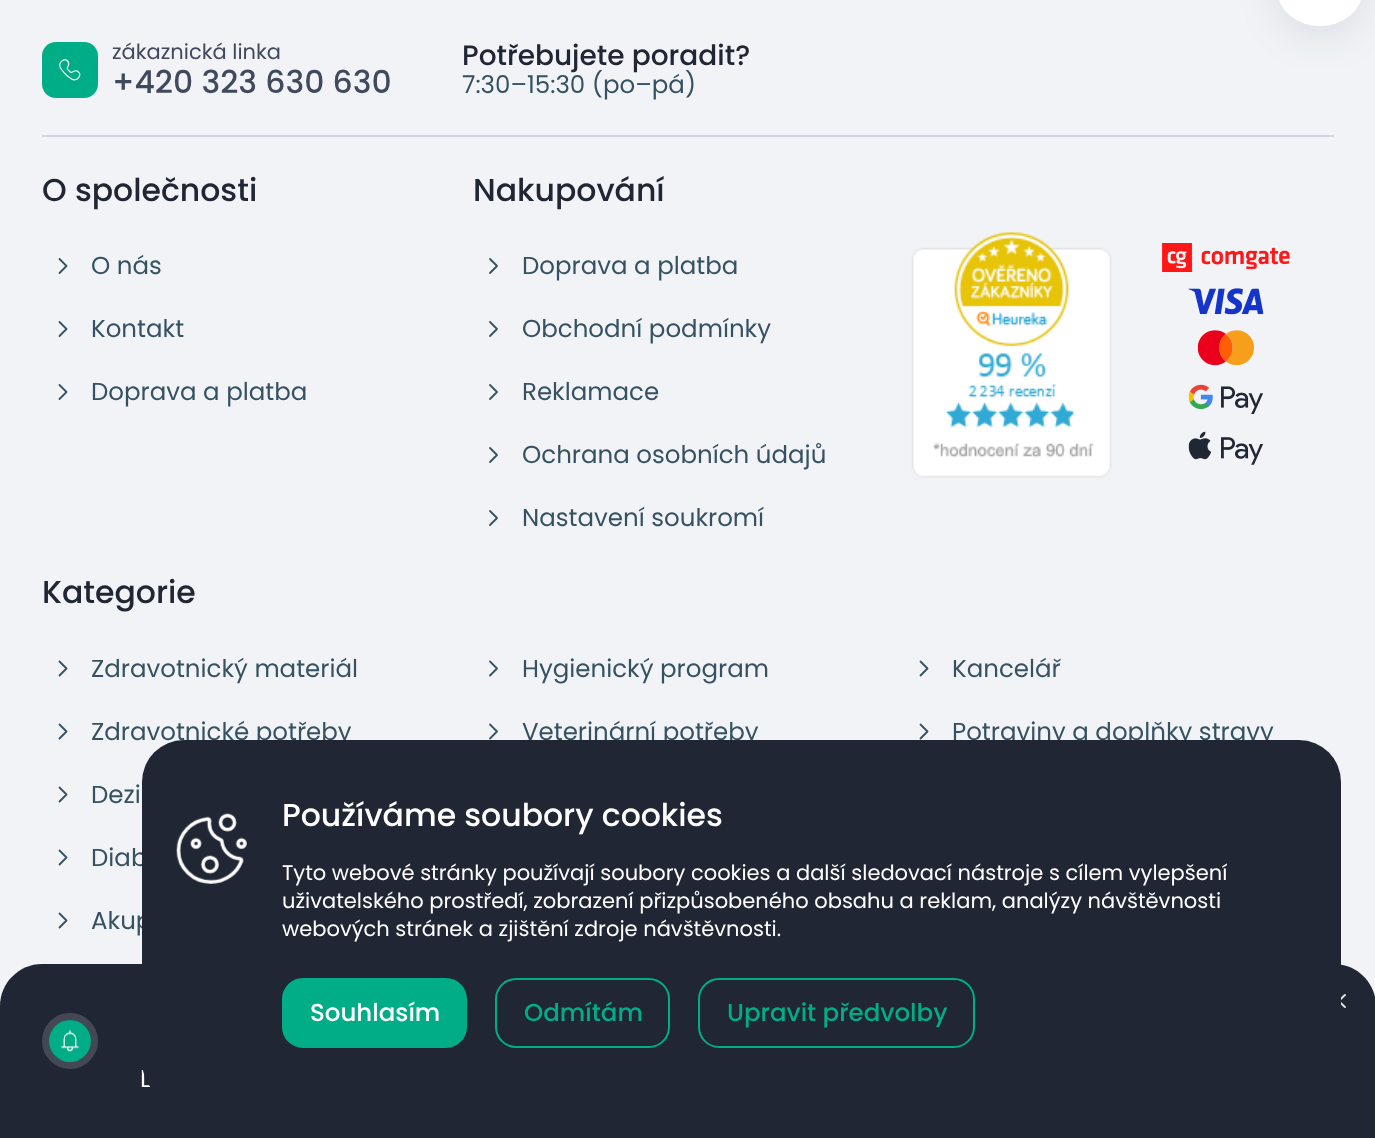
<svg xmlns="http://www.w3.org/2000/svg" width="1375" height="1138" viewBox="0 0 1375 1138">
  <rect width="100%" height="100%" fill="rgb(241,243,246)"/>
  <rect x="1278" y="-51" width="84" height="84" rx="42" fill="rgba(25,49,63,0.12)" filter="blur(21px)"/>
  <rect x="1278" y="-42" width="84" height="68" rx="42" fill="rgb(255,255,255)"/>
  <rect x="42" y="135" width="1292" height="2" fill="rgb(209,214,226)"/>
  <rect x="42" y="42" width="56" height="56" rx="14" fill="rgb(0,173,135)"/>
  <image x="59" y="59" width="22" height="22" href="pic1.png"/>
  <text x="112" y="59" font-family="Poppins" font-size="21" fill="rgb(65,73,93)">zákaznická linka</text>
  <text x="112" y="93" font-family="Poppins" font-size="31.5" font-weight="500" fill="rgb(65,73,93)">+420 323 630 630</text>
  <text x="462" y="65" font-family="Poppins" font-size="28" font-weight="500" fill="rgb(32,38,52)">Potřebujete poradit?</text>
  <text x="462" y="93" font-family="Poppins" font-size="24.5" fill="rgb(54,82,98)">7:30–15:30 (po–pá)</text>
  <text x="42" y="201" font-family="Poppins" font-size="31.5" font-weight="500" fill="rgb(32,38,52)">O společnosti</text>
  <path d="M59.5 273L66.5 266L59.5 259" fill="none" stroke="rgb(54,82,98)" stroke-width="1.8" stroke-linecap="round" stroke-linejoin="round"/>
  <text x="91" y="274" font-family="Poppins" font-size="24.5" fill="rgb(54,82,98)">O nás</text>
  <path d="M59.5 336L66.5 329L59.5 322" fill="none" stroke="rgb(54,82,98)" stroke-width="1.8" stroke-linecap="round" stroke-linejoin="round"/>
  <text x="91" y="337" font-family="Poppins" font-size="24.5" fill="rgb(54,82,98)">Kontakt</text>
  <path d="M59.5 399L66.5 392L59.5 385" fill="none" stroke="rgb(54,82,98)" stroke-width="1.8" stroke-linecap="round" stroke-linejoin="round"/>
  <text x="91" y="400" font-family="Poppins" font-size="24.5" fill="rgb(54,82,98)">Doprava a platba</text>
  <text x="473" y="201" font-family="Poppins" font-size="31.5" font-weight="500" fill="rgb(32,38,52)">Nakupování</text>
  <path d="M490 273L497 266L490 259" fill="none" stroke="rgb(54,82,98)" stroke-width="1.8" stroke-linecap="round" stroke-linejoin="round"/>
  <text x="522" y="274" font-family="Poppins" font-size="24.5" fill="rgb(54,82,98)">Doprava a platba</text>
  <path d="M490 336L497 329L490 322" fill="none" stroke="rgb(54,82,98)" stroke-width="1.8" stroke-linecap="round" stroke-linejoin="round"/>
  <text x="522" y="337" font-family="Poppins" font-size="24.5" fill="rgb(54,82,98)">Obchodní podmínky</text>
  <path d="M490 399L497 392L490 385" fill="none" stroke="rgb(54,82,98)" stroke-width="1.8" stroke-linecap="round" stroke-linejoin="round"/>
  <text x="522" y="400" font-family="Poppins" font-size="24.5" fill="rgb(54,82,98)">Reklamace</text>
  <path d="M490 462L497 455L490 448" fill="none" stroke="rgb(54,82,98)" stroke-width="1.8" stroke-linecap="round" stroke-linejoin="round"/>
  <text x="522" y="463" font-family="Poppins" font-size="24.5" fill="rgb(54,82,98)">Ochrana osobních údajů</text>
  <path d="M490 525L497 518L490 511" fill="none" stroke="rgb(54,82,98)" stroke-width="1.8" stroke-linecap="round" stroke-linejoin="round"/>
  <text x="522" y="526" font-family="Poppins" font-size="24.5" fill="rgb(54,82,98)">Nastavení soukromí</text>
  <image x="911" y="232" width="201" height="246" href="pic2.png"/>
  <image x="1162" y="243" width="128" height="29" href="pic3.png"/>
  <image x="1188" y="288" width="76" height="27" href="pic4.png"/>
  <image x="1197" y="330" width="57" height="36" href="pic5.png"/>
  <image x="1188" y="384" width="75" height="30" href="pic6.png"/>
  <image x="1188" y="431" width="75" height="34" href="pic7.png"/>
  <text x="42" y="603" font-family="Poppins" font-size="31.5" font-weight="500" fill="rgb(32,38,52)">Kategorie</text>
  <path d="M59.5 675.5L66.5 668.5L59.5 661.5" fill="none" stroke="rgb(54,82,98)" stroke-width="1.8" stroke-linecap="round" stroke-linejoin="round"/>
  <text x="91" y="677" font-family="Poppins" font-size="24.5" fill="rgb(54,82,98)">Zdravotnický materiál</text>
  <path d="M490 675.5L497 668.5L490 661.5" fill="none" stroke="rgb(54,82,98)" stroke-width="1.8" stroke-linecap="round" stroke-linejoin="round"/>
  <text x="522" y="677" font-family="Poppins" font-size="24.5" fill="rgb(54,82,98)">Hygienický program</text>
  <path d="M920.5 675.5L927.5 668.5L920.5 661.5" fill="none" stroke="rgb(54,82,98)" stroke-width="1.8" stroke-linecap="round" stroke-linejoin="round"/>
  <text x="952" y="677" font-family="Poppins" font-size="24.5" fill="rgb(54,82,98)">Kancelář</text>
  <path d="M59.5 738.5L66.5 731.5L59.5 724.5" fill="none" stroke="rgb(54,82,98)" stroke-width="1.8" stroke-linecap="round" stroke-linejoin="round"/>
  <text x="91" y="740" font-family="Poppins" font-size="24.5" fill="rgb(54,82,98)">Zdravotnické potřeby</text>
  <path d="M490 738.5L497 731.5L490 724.5" fill="none" stroke="rgb(54,82,98)" stroke-width="1.8" stroke-linecap="round" stroke-linejoin="round"/>
  <text x="522" y="740" font-family="Poppins" font-size="24.5" fill="rgb(54,82,98)">Veterinární potřeby</text>
  <path d="M920.5 738.5L927.5 731.5L920.5 724.5" fill="none" stroke="rgb(54,82,98)" stroke-width="1.8" stroke-linecap="round" stroke-linejoin="round"/>
  <text x="952" y="740" font-family="Poppins" font-size="24.5" fill="rgb(54,82,98)">Potraviny a doplňky stravy</text>
  <path d="M59.5 801.5L66.5 794.5L59.5 787.5" fill="none" stroke="rgb(54,82,98)" stroke-width="1.8" stroke-linecap="round" stroke-linejoin="round"/>
  <text x="91" y="803" font-family="Poppins" font-size="24.5" fill="rgb(54,82,98)">Dezi</text>
  <path d="M59.5 864.5L66.5 857.5L59.5 850.5" fill="none" stroke="rgb(54,82,98)" stroke-width="1.8" stroke-linecap="round" stroke-linejoin="round"/>
  <text x="91" y="866" font-family="Poppins" font-size="24.5" fill="rgb(54,82,98)">Diab</text>
  <path d="M59.5 927.5L66.5 920.5L59.5 913.5" fill="none" stroke="rgb(54,82,98)" stroke-width="1.8" stroke-linecap="round" stroke-linejoin="round"/>
  <text x="91" y="929" font-family="Poppins" font-size="24.5" fill="rgb(54,82,98)">Akup</text>
  <path d="M42 964H1334C1357 964 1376 983 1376 1006V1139H0V1006C0 983 19 964 42 964Z" fill="rgb(32,38,52)"/>
  <text x="140" y="1087" font-family="Poppins" font-size="24.5" fill="rgb(255,255,255)">L</text>
  <rect x="142" y="740" width="1199" height="364" rx="42" fill="rgb(32,38,52)"/>
  <image x="176" y="813" width="71" height="71" href="pic8.png"/>
  <text x="282" y="826" font-family="Poppins" font-size="31.5" font-weight="500" fill="rgb(255,255,255)">Používáme soubory cookies</text>
  <g font-family="Poppins" font-size="21" fill="rgb(255,255,255)">
    <text>
      <tspan x="282" y="880">Tyto webové stránky používají soubory cookies a další sledovací nástroje s cílem vylepšení</tspan>
      <tspan x="282" y="908">uživatelského prostředí, zobrazení přizpůsobeného obsahu a reklam, analýzy návštěvnosti</tspan>
      <tspan x="282" y="936">webových stránek a zjištění zdroje návštěvnosti.</tspan>
    </text>
  </g>
  <rect x="283" y="979" width="183" height="68" rx="20" fill="rgb(0,173,135)" stroke="rgb(0,173,135)" stroke-width="2"/>
  <text x="310" y="1021" font-family="Poppins" font-size="24.5" font-weight="500" fill="rgb(255,255,255)">Souhlasím</text>
  <rect x="496" y="979" width="173" height="68" rx="20" fill="none" stroke="rgb(0,173,135)" stroke-width="2"/>
  <text x="524" y="1021" font-family="Poppins" font-size="24.5" font-weight="500" fill="rgb(0,173,135)">Odmítám</text>
  <rect x="699" y="979" width="275" height="68" rx="20" fill="none" stroke="rgb(0,173,135)" stroke-width="2"/>
  <text x="727" y="1021" font-family="Poppins" font-size="24.5" font-weight="500" fill="rgb(0,173,135)">Upravit předvolby</text>
  <image x="1341" y="994" width="5" height="14" href="pic9.png"/>
  <circle cx="70" cy="1041" r="21" fill="rgb(0,173,135)"/>
  <circle cx="70" cy="1041" r="24.5" fill="none" stroke="rgba(255,255,255,0.16)" stroke-width="7"/>
  <image x="61" y="1030" width="18" height="22" href="pic10.png"/>
</svg>
